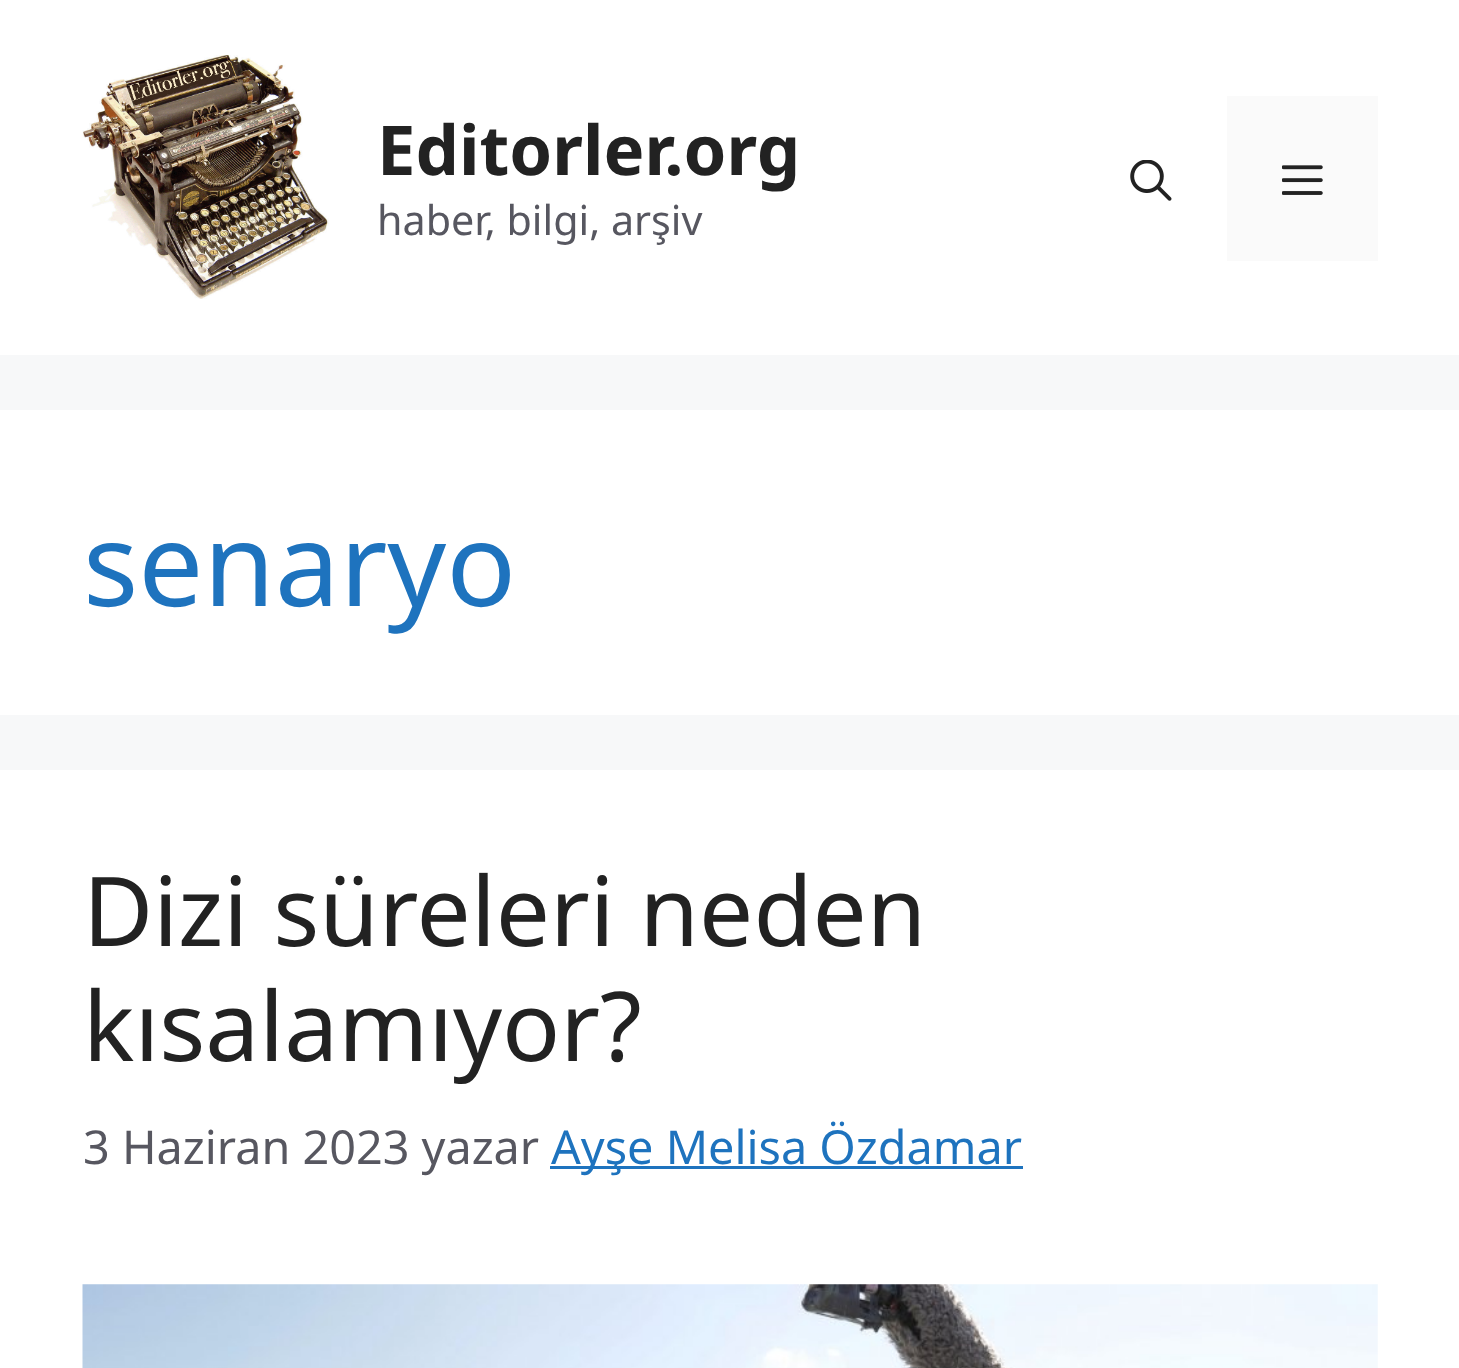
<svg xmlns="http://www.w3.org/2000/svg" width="1459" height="1368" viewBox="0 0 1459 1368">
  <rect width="100%" height="100%" fill="rgb(247,248,249)"/>
  <rect x="0" y="0" width="1459" height="355" fill="rgb(255,255,255)"/>
  <image x="82" y="55" width="247" height="244" href="pic1.png"/>
  <text x="377" y="175" font-family="Noto Sans" font-size="68.75" font-weight="bold" fill="rgb(34,34,34)">Editorler.org</text>
  <text x="377" y="235" font-family="Noto Sans" font-size="41.25" fill="rgb(87,87,96)">haber, bilgi, arşiv</text>
  <image x="1130" y="160" width="42" height="41" href="pic2.png"/>
  <rect x="1227" y="96" width="151" height="165" fill="rgb(250,250,250)"/>
  <image x="1282" y="165" width="41" height="30" href="pic3.png"/>
  <rect x="0" y="410" width="1459" height="305" fill="rgb(255,255,255)"/>
  <text x="83" y="606" font-family="Noto Sans" font-size="115.5" fill="rgb(30,115,190)">senaryo</text>
  <rect x="0" y="770" width="1459" height="598" fill="rgb(255,255,255)"/>
  <g font-family="Noto Sans" font-size="96.25" fill="rgb(34,34,34)">
    <text>
      <tspan x="83" y="946">Dizi süreleri neden</tspan>
      <tspan x="83" y="1061">kısalamıyor?</tspan>
    </text>
  </g>
  <text x="83" y="1164" font-family="Noto Sans" font-size="46.75" fill="rgb(87,87,96)">3 Haziran 2023 yazar</text>
  <rect x="550" y="1166" width="473" height="3" fill="rgb(30,115,190)"/>
  <text x="551" y="1164" font-family="Noto Sans" font-size="46.75" fill="rgb(30,115,190)">Ayşe Melisa Özdamar</text>
  <image x="82" y="1284" width="1296" height="84" href="pic4.png"/>
</svg>
